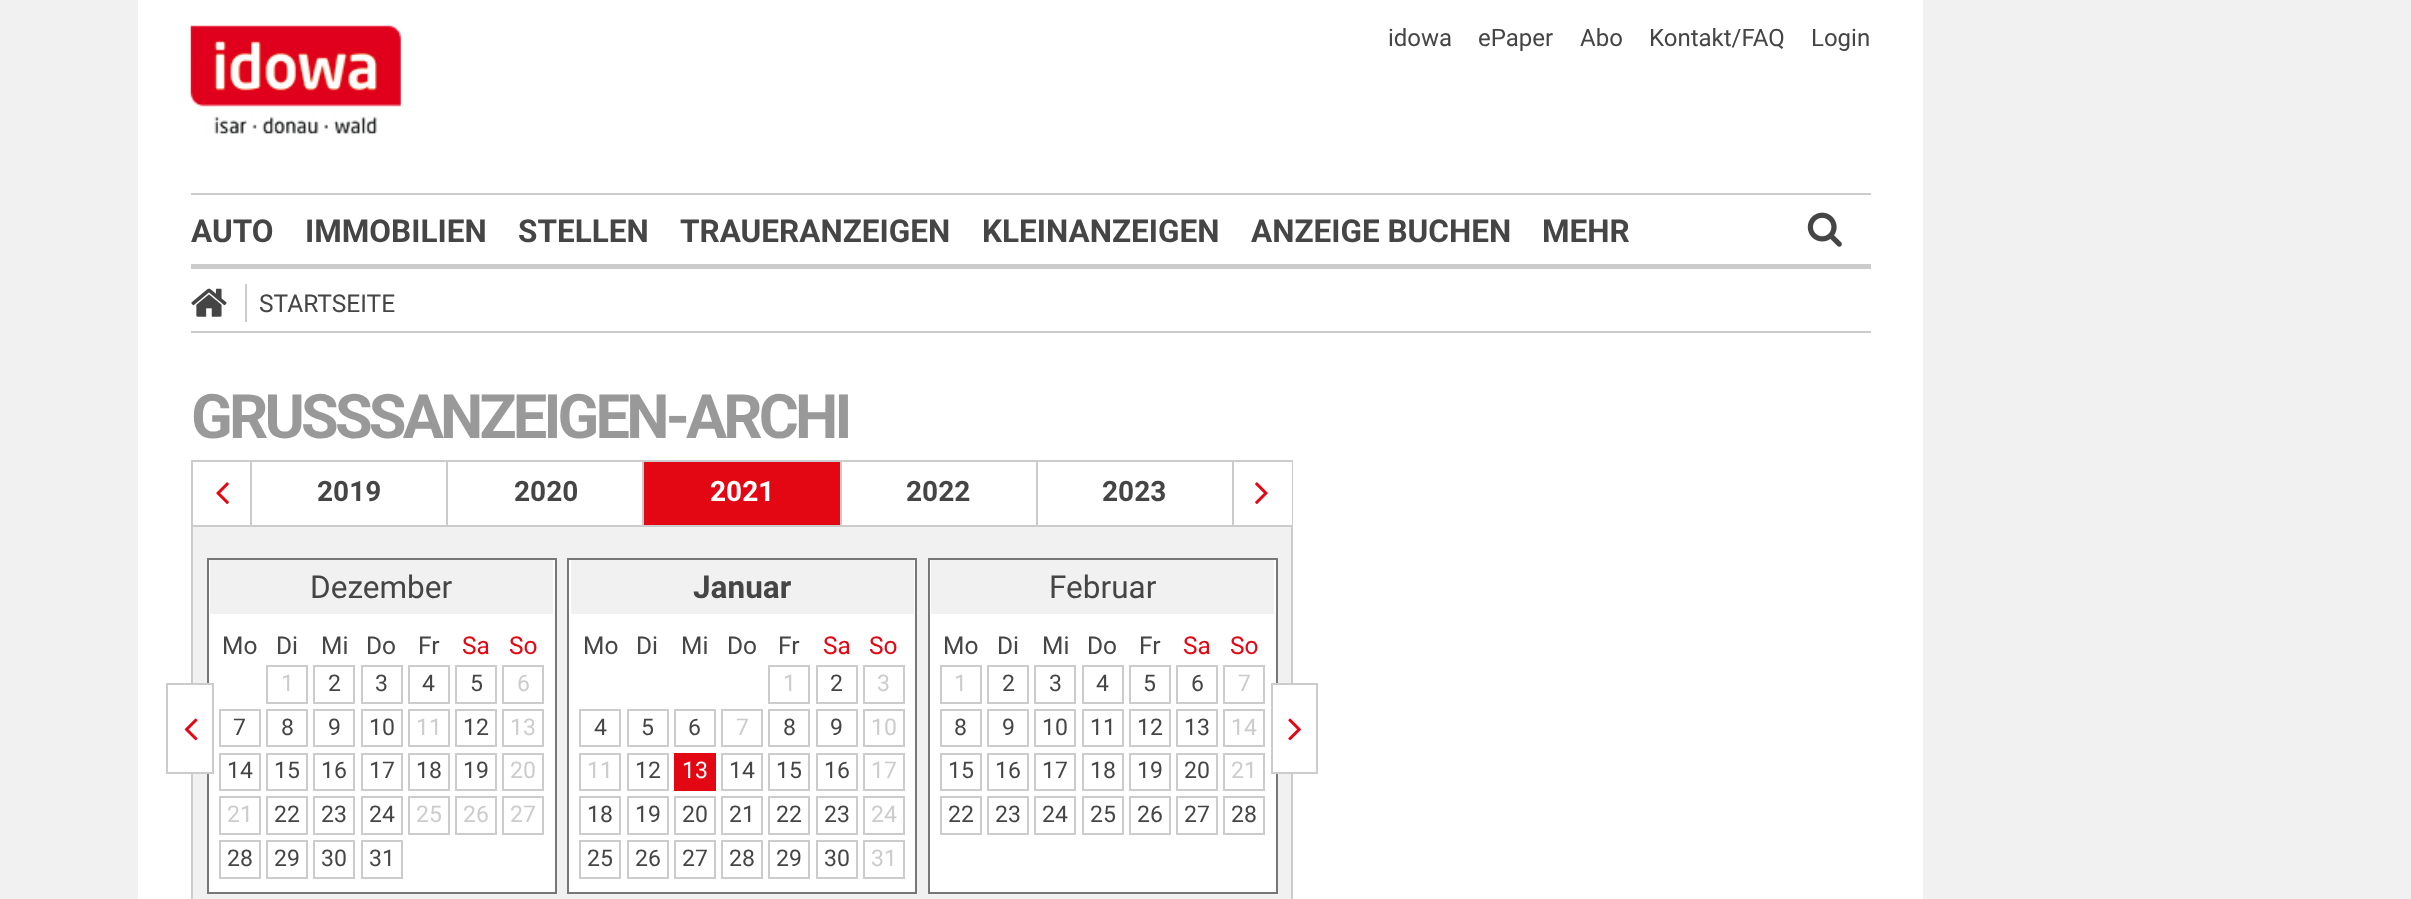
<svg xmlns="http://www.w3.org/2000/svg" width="2411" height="899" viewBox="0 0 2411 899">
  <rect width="100%" height="100%" fill="rgb(241,241,241)"/>
  <rect x="138" y="0" width="1785" height="899" fill="rgb(255,255,255)"/>
  <image x="190" y="25" width="211" height="109" href="pic1.png"/>
  <g font-family="Roboto" font-size="24" fill="rgb(69,69,69)">
    <text x="1388" y="46">idowa</text>
    <text x="1478" y="46">ePaper</text>
    <text x="1580" y="46">Abo</text>
    <text x="1649" y="46">Kontakt/FAQ</text>
    <text x="1811" y="46">Login</text>
  </g>
  <rect x="191" y="193" width="1680" height="2" fill="rgb(204,204,204)"/>
  <rect x="191" y="264" width="1680" height="5" fill="rgb(204,204,204)"/>
  <g font-family="Roboto" font-size="31.5" font-weight="bold" fill="rgb(69,69,69)">
    <text x="191" y="242">AUTO</text>
    <text x="305" y="242">IMMOBILIEN</text>
    <text x="518" y="242">STELLEN</text>
    <text x="680" y="242">TRAUERANZEIGEN</text>
    <text x="982" y="242">KLEINANZEIGEN</text>
    <text x="1251" y="242">ANZEIGE BUCHEN</text>
    <text x="1542" y="242">MEHR</text>
  </g>
  <image x="1807" y="212" width="35" height="35" href="pic2.png"/>
  <rect x="191" y="331" width="1680" height="2" fill="rgb(204,204,204)"/>
  <image x="191" y="288" width="36" height="29" href="pic3.png"/>
  <rect x="245" y="284" width="2" height="38" fill="rgb(204,204,204)"/>
  <text x="259" y="312" font-family="Roboto" font-size="24.5" fill="rgb(69,69,69)">STARTSEITE</text>
  <text x="191" y="438" font-family="Roboto" font-size="61.25" font-weight="bold" letter-spacing="-3.8" fill="rgb(153,153,153)">GRUSSSANZEIGEN-ARCHI</text>
  <rect x="193" y="527" width="1098" height="372" fill="rgb(241,241,241)"/>
  <rect x="192" y="461" width="1100" height="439" fill="none" stroke="rgb(204,204,204)" stroke-width="2"/>
  <rect x="192" y="461" width="1100" height="65" fill="none" stroke="rgb(204,204,204)" stroke-width="2"/>
  <rect x="250" y="462" width="2" height="63" fill="rgb(204,204,204)"/>
  <image x="216" y="482" width="13" height="22" href="pic4.png"/>
  <rect x="446" y="462" width="2" height="63" fill="rgb(204,204,204)"/>
  <text x="317" y="501" font-family="'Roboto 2'" font-size="28" font-weight="bold" fill="rgb(69,69,69)">2019</text>
  <rect x="642" y="462" width="2" height="63" fill="rgb(204,204,204)"/>
  <text x="514" y="501" font-family="'Roboto 2'" font-size="28" font-weight="bold" fill="rgb(69,69,69)">2020</text>
  <rect x="644" y="462" width="196" height="63" fill="rgb(227,6,19)"/>
  <rect x="840" y="462" width="2" height="63" fill="rgb(204,204,204)"/>
  <text x="710" y="501" font-family="'Roboto 2'" font-size="28" font-weight="bold" fill="rgb(255,255,255)">2021</text>
  <rect x="1036" y="462" width="2" height="63" fill="rgb(204,204,204)"/>
  <text x="906" y="501" font-family="'Roboto 2'" font-size="28" font-weight="bold" fill="rgb(69,69,69)">2022</text>
  <rect x="1232" y="462" width="2" height="63" fill="rgb(204,204,204)"/>
  <text x="1102" y="501" font-family="'Roboto 2'" font-size="28" font-weight="bold" fill="rgb(69,69,69)">2023</text>
  <rect x="1291" y="462" width="1" height="63" fill="rgb(255,255,255)"/>
  <image x="1255" y="482" width="13" height="22" href="pic5.png"/>
  <rect x="208" y="559" width="348" height="334" fill="rgb(255,255,255)" stroke="rgb(119,119,119)" stroke-width="2"/>
  <rect x="191" y="685" width="18" height="87" fill="rgb(255,255,255)"/>
  <rect x="167" y="684" width="46" height="89" fill="none" stroke="rgb(204,204,204)" stroke-width="2"/>
  <image x="184" y="718" width="14" height="23" href="pic6.png"/>
  <rect x="210" y="560" width="343" height="54" fill="rgb(241,241,241)"/>
  <text x="310" y="598" font-family="Roboto" font-size="31.5" fill="rgb(69,69,69)">Dezember</text>
  <g font-family="Roboto" font-size="24.5" fill="rgb(69,69,69)">
    <text x="222" y="654">Mo</text>
    <text x="276" y="654">Di</text>
    <text x="321" y="654">Mi</text>
    <text x="366" y="654">Do</text>
    <text x="418" y="654">Fr</text>
  </g>
  <g font-family="Roboto" font-size="24.5" fill="rgb(227,6,19)">
    <text x="462" y="654">Sa</text>
    <text x="509" y="654">So</text>
  </g>
  <rect x="267" y="666" width="40" height="37" fill="none" stroke="rgb(204,204,204)" stroke-width="2"/>
  <text x="281" y="691" font-family="Roboto" font-size="23" fill="rgb(204,204,204)">1</text>
  <rect x="314" y="666" width="40" height="37" fill="none" stroke="rgb(204,204,204)" stroke-width="2"/>
  <text x="328" y="691" font-family="Roboto" font-size="23" fill="rgb(69,69,69)">2</text>
  <rect x="362" y="666" width="40" height="37" fill="none" stroke="rgb(204,204,204)" stroke-width="2"/>
  <text x="375" y="691" font-family="Roboto" font-size="23" fill="rgb(69,69,69)">3</text>
  <rect x="409" y="666" width="40" height="37" fill="none" stroke="rgb(204,204,204)" stroke-width="2"/>
  <text x="422" y="691" font-family="Roboto" font-size="23" fill="rgb(69,69,69)">4</text>
  <rect x="456" y="666" width="40" height="37" fill="none" stroke="rgb(204,204,204)" stroke-width="2"/>
  <text x="470" y="691" font-family="Roboto" font-size="23" fill="rgb(69,69,69)">5</text>
  <rect x="503" y="666" width="40" height="37" fill="none" stroke="rgb(204,204,204)" stroke-width="2"/>
  <text x="517" y="691" font-family="Roboto" font-size="23" fill="rgb(204,204,204)">6</text>
  <rect x="220" y="710" width="40" height="36" fill="none" stroke="rgb(204,204,204)" stroke-width="2"/>
  <text x="233" y="735" font-family="Roboto" font-size="23" fill="rgb(69,69,69)">7</text>
  <rect x="267" y="710" width="40" height="36" fill="none" stroke="rgb(204,204,204)" stroke-width="2"/>
  <text x="281" y="735" font-family="Roboto" font-size="23" fill="rgb(69,69,69)">8</text>
  <rect x="314" y="710" width="40" height="36" fill="none" stroke="rgb(204,204,204)" stroke-width="2"/>
  <text x="328" y="735" font-family="Roboto" font-size="23" fill="rgb(69,69,69)">9</text>
  <rect x="362" y="710" width="40" height="36" fill="none" stroke="rgb(204,204,204)" stroke-width="2"/>
  <text x="369" y="735" font-family="Roboto" font-size="23" fill="rgb(69,69,69)">10</text>
  <rect x="409" y="710" width="40" height="36" fill="none" stroke="rgb(204,204,204)" stroke-width="2"/>
  <text x="416" y="735" font-family="Roboto" font-size="23" fill="rgb(204,204,204)">11</text>
  <rect x="456" y="710" width="40" height="36" fill="none" stroke="rgb(204,204,204)" stroke-width="2"/>
  <text x="463" y="735" font-family="Roboto" font-size="23" fill="rgb(69,69,69)">12</text>
  <rect x="503" y="710" width="40" height="36" fill="none" stroke="rgb(204,204,204)" stroke-width="2"/>
  <text x="510" y="735" font-family="Roboto" font-size="23" fill="rgb(204,204,204)">13</text>
  <rect x="220" y="754" width="40" height="36" fill="none" stroke="rgb(204,204,204)" stroke-width="2"/>
  <text x="227" y="778" font-family="Roboto" font-size="23" fill="rgb(69,69,69)">14</text>
  <rect x="267" y="754" width="40" height="36" fill="none" stroke="rgb(204,204,204)" stroke-width="2"/>
  <text x="274" y="778" font-family="Roboto" font-size="23" fill="rgb(69,69,69)">15</text>
  <rect x="314" y="754" width="40" height="36" fill="none" stroke="rgb(204,204,204)" stroke-width="2"/>
  <text x="321" y="778" font-family="Roboto" font-size="23" fill="rgb(69,69,69)">16</text>
  <rect x="362" y="754" width="40" height="36" fill="none" stroke="rgb(204,204,204)" stroke-width="2"/>
  <text x="369" y="778" font-family="Roboto" font-size="23" fill="rgb(69,69,69)">17</text>
  <rect x="409" y="754" width="40" height="36" fill="none" stroke="rgb(204,204,204)" stroke-width="2"/>
  <text x="416" y="778" font-family="Roboto" font-size="23" fill="rgb(69,69,69)">18</text>
  <rect x="456" y="754" width="40" height="36" fill="none" stroke="rgb(204,204,204)" stroke-width="2"/>
  <text x="463" y="778" font-family="Roboto" font-size="23" fill="rgb(69,69,69)">19</text>
  <rect x="503" y="754" width="40" height="36" fill="none" stroke="rgb(204,204,204)" stroke-width="2"/>
  <text x="510" y="778" font-family="Roboto" font-size="23" fill="rgb(204,204,204)">20</text>
  <rect x="220" y="797" width="40" height="37" fill="none" stroke="rgb(204,204,204)" stroke-width="2"/>
  <text x="227" y="822" font-family="Roboto" font-size="23" fill="rgb(204,204,204)">21</text>
  <rect x="267" y="797" width="40" height="37" fill="none" stroke="rgb(204,204,204)" stroke-width="2"/>
  <text x="274" y="822" font-family="Roboto" font-size="23" fill="rgb(69,69,69)">22</text>
  <rect x="314" y="797" width="40" height="37" fill="none" stroke="rgb(204,204,204)" stroke-width="2"/>
  <text x="321" y="822" font-family="Roboto" font-size="23" fill="rgb(69,69,69)">23</text>
  <rect x="362" y="797" width="40" height="37" fill="none" stroke="rgb(204,204,204)" stroke-width="2"/>
  <text x="369" y="822" font-family="Roboto" font-size="23" fill="rgb(69,69,69)">24</text>
  <rect x="409" y="797" width="40" height="37" fill="none" stroke="rgb(204,204,204)" stroke-width="2"/>
  <text x="416" y="822" font-family="Roboto" font-size="23" fill="rgb(204,204,204)">25</text>
  <rect x="456" y="797" width="40" height="37" fill="none" stroke="rgb(204,204,204)" stroke-width="2"/>
  <text x="463" y="822" font-family="Roboto" font-size="23" fill="rgb(204,204,204)">26</text>
  <rect x="503" y="797" width="40" height="37" fill="none" stroke="rgb(204,204,204)" stroke-width="2"/>
  <text x="510" y="822" font-family="Roboto" font-size="23" fill="rgb(204,204,204)">27</text>
  <rect x="220" y="841" width="40" height="37" fill="none" stroke="rgb(204,204,204)" stroke-width="2"/>
  <text x="227" y="866" font-family="Roboto" font-size="23" fill="rgb(69,69,69)">28</text>
  <rect x="267" y="841" width="40" height="37" fill="none" stroke="rgb(204,204,204)" stroke-width="2"/>
  <text x="274" y="866" font-family="Roboto" font-size="23" fill="rgb(69,69,69)">29</text>
  <rect x="314" y="841" width="40" height="37" fill="none" stroke="rgb(204,204,204)" stroke-width="2"/>
  <text x="321" y="866" font-family="Roboto" font-size="23" fill="rgb(69,69,69)">30</text>
  <rect x="362" y="841" width="40" height="37" fill="none" stroke="rgb(204,204,204)" stroke-width="2"/>
  <text x="369" y="866" font-family="Roboto" font-size="23" fill="rgb(69,69,69)">31</text>
  <rect x="568" y="559" width="348" height="334" fill="rgb(255,255,255)" stroke="rgb(119,119,119)" stroke-width="2"/>
  <rect x="571" y="560" width="343" height="54" fill="rgb(241,241,241)"/>
  <text x="693" y="598" font-family="'Roboto 2'" font-size="31.5" font-weight="bold" fill="rgb(69,69,69)">Januar</text>
  <g font-family="Roboto" font-size="24.5" fill="rgb(69,69,69)">
    <text x="583" y="654">Mo</text>
    <text x="636" y="654">Di</text>
    <text x="681" y="654">Mi</text>
    <text x="727" y="654">Do</text>
    <text x="778" y="654">Fr</text>
  </g>
  <g font-family="Roboto" font-size="24.5" fill="rgb(227,6,19)">
    <text x="823" y="654">Sa</text>
    <text x="869" y="654">So</text>
  </g>
  <rect x="769" y="666" width="40" height="37" fill="none" stroke="rgb(204,204,204)" stroke-width="2"/>
  <text x="783" y="691" font-family="Roboto" font-size="23" fill="rgb(204,204,204)">1</text>
  <rect x="817" y="666" width="40" height="37" fill="none" stroke="rgb(204,204,204)" stroke-width="2"/>
  <text x="830" y="691" font-family="Roboto" font-size="23" fill="rgb(69,69,69)">2</text>
  <rect x="864" y="666" width="40" height="37" fill="none" stroke="rgb(204,204,204)" stroke-width="2"/>
  <text x="877" y="691" font-family="Roboto" font-size="23" fill="rgb(204,204,204)">3</text>
  <rect x="580" y="710" width="40" height="36" fill="none" stroke="rgb(204,204,204)" stroke-width="2"/>
  <text x="594" y="735" font-family="Roboto" font-size="23" fill="rgb(69,69,69)">4</text>
  <rect x="628" y="710" width="40" height="36" fill="none" stroke="rgb(204,204,204)" stroke-width="2"/>
  <text x="641" y="735" font-family="Roboto" font-size="23" fill="rgb(69,69,69)">5</text>
  <rect x="675" y="710" width="40" height="36" fill="none" stroke="rgb(204,204,204)" stroke-width="2"/>
  <text x="688" y="735" font-family="Roboto" font-size="23" fill="rgb(69,69,69)">6</text>
  <rect x="722" y="710" width="40" height="36" fill="none" stroke="rgb(204,204,204)" stroke-width="2"/>
  <text x="736" y="735" font-family="Roboto" font-size="23" fill="rgb(204,204,204)">7</text>
  <rect x="769" y="710" width="40" height="36" fill="none" stroke="rgb(204,204,204)" stroke-width="2"/>
  <text x="783" y="735" font-family="Roboto" font-size="23" fill="rgb(69,69,69)">8</text>
  <rect x="817" y="710" width="40" height="36" fill="none" stroke="rgb(204,204,204)" stroke-width="2"/>
  <text x="830" y="735" font-family="Roboto" font-size="23" fill="rgb(69,69,69)">9</text>
  <rect x="864" y="710" width="40" height="36" fill="none" stroke="rgb(204,204,204)" stroke-width="2"/>
  <text x="871" y="735" font-family="Roboto" font-size="23" fill="rgb(204,204,204)">10</text>
  <rect x="580" y="754" width="40" height="36" fill="none" stroke="rgb(204,204,204)" stroke-width="2"/>
  <text x="587" y="778" font-family="Roboto" font-size="23" fill="rgb(204,204,204)">11</text>
  <rect x="628" y="754" width="40" height="36" fill="none" stroke="rgb(204,204,204)" stroke-width="2"/>
  <text x="635" y="778" font-family="Roboto" font-size="23" fill="rgb(69,69,69)">12</text>
  <rect x="674" y="753" width="42" height="38" fill="rgb(227,6,19)"/>
  <text x="682" y="778" font-family="Roboto" font-size="23" fill="rgb(255,255,255)">13</text>
  <rect x="722" y="754" width="40" height="36" fill="none" stroke="rgb(204,204,204)" stroke-width="2"/>
  <text x="729" y="778" font-family="Roboto" font-size="23" fill="rgb(69,69,69)">14</text>
  <rect x="769" y="754" width="40" height="36" fill="none" stroke="rgb(204,204,204)" stroke-width="2"/>
  <text x="776" y="778" font-family="Roboto" font-size="23" fill="rgb(69,69,69)">15</text>
  <rect x="817" y="754" width="40" height="36" fill="none" stroke="rgb(204,204,204)" stroke-width="2"/>
  <text x="824" y="778" font-family="Roboto" font-size="23" fill="rgb(69,69,69)">16</text>
  <rect x="864" y="754" width="40" height="36" fill="none" stroke="rgb(204,204,204)" stroke-width="2"/>
  <text x="871" y="778" font-family="Roboto" font-size="23" fill="rgb(204,204,204)">17</text>
  <rect x="580" y="797" width="40" height="37" fill="none" stroke="rgb(204,204,204)" stroke-width="2"/>
  <text x="587" y="822" font-family="Roboto" font-size="23" fill="rgb(69,69,69)">18</text>
  <rect x="628" y="797" width="40" height="37" fill="none" stroke="rgb(204,204,204)" stroke-width="2"/>
  <text x="635" y="822" font-family="Roboto" font-size="23" fill="rgb(69,69,69)">19</text>
  <rect x="675" y="797" width="40" height="37" fill="none" stroke="rgb(204,204,204)" stroke-width="2"/>
  <text x="682" y="822" font-family="Roboto" font-size="23" fill="rgb(69,69,69)">20</text>
  <rect x="722" y="797" width="40" height="37" fill="none" stroke="rgb(204,204,204)" stroke-width="2"/>
  <text x="729" y="822" font-family="Roboto" font-size="23" fill="rgb(69,69,69)">21</text>
  <rect x="769" y="797" width="40" height="37" fill="none" stroke="rgb(204,204,204)" stroke-width="2"/>
  <text x="776" y="822" font-family="Roboto" font-size="23" fill="rgb(69,69,69)">22</text>
  <rect x="817" y="797" width="40" height="37" fill="none" stroke="rgb(204,204,204)" stroke-width="2"/>
  <text x="824" y="822" font-family="Roboto" font-size="23" fill="rgb(69,69,69)">23</text>
  <rect x="864" y="797" width="40" height="37" fill="none" stroke="rgb(204,204,204)" stroke-width="2"/>
  <text x="871" y="822" font-family="Roboto" font-size="23" fill="rgb(204,204,204)">24</text>
  <rect x="580" y="841" width="40" height="37" fill="none" stroke="rgb(204,204,204)" stroke-width="2"/>
  <text x="587" y="866" font-family="Roboto" font-size="23" fill="rgb(69,69,69)">25</text>
  <rect x="628" y="841" width="40" height="37" fill="none" stroke="rgb(204,204,204)" stroke-width="2"/>
  <text x="635" y="866" font-family="Roboto" font-size="23" fill="rgb(69,69,69)">26</text>
  <rect x="675" y="841" width="40" height="37" fill="none" stroke="rgb(204,204,204)" stroke-width="2"/>
  <text x="682" y="866" font-family="Roboto" font-size="23" fill="rgb(69,69,69)">27</text>
  <rect x="722" y="841" width="40" height="37" fill="none" stroke="rgb(204,204,204)" stroke-width="2"/>
  <text x="729" y="866" font-family="Roboto" font-size="23" fill="rgb(69,69,69)">28</text>
  <rect x="769" y="841" width="40" height="37" fill="none" stroke="rgb(204,204,204)" stroke-width="2"/>
  <text x="776" y="866" font-family="Roboto" font-size="23" fill="rgb(69,69,69)">29</text>
  <rect x="817" y="841" width="40" height="37" fill="none" stroke="rgb(204,204,204)" stroke-width="2"/>
  <text x="824" y="866" font-family="Roboto" font-size="23" fill="rgb(69,69,69)">30</text>
  <rect x="864" y="841" width="40" height="37" fill="none" stroke="rgb(204,204,204)" stroke-width="2"/>
  <text x="871" y="866" font-family="Roboto" font-size="23" fill="rgb(204,204,204)">31</text>
  <rect x="929" y="559" width="348" height="334" fill="rgb(255,255,255)" stroke="rgb(119,119,119)" stroke-width="2"/>
  <rect x="931" y="560" width="343" height="54" fill="rgb(241,241,241)"/>
  <text x="1049" y="598" font-family="Roboto" font-size="31.5" fill="rgb(69,69,69)">Februar</text>
  <g font-family="Roboto" font-size="24.5" fill="rgb(69,69,69)">
    <text x="943" y="654">Mo</text>
    <text x="997" y="654">Di</text>
    <text x="1042" y="654">Mi</text>
    <text x="1087" y="654">Do</text>
    <text x="1139" y="654">Fr</text>
  </g>
  <g font-family="Roboto" font-size="24.5" fill="rgb(227,6,19)">
    <text x="1183" y="654">Sa</text>
    <text x="1230" y="654">So</text>
  </g>
  <rect x="941" y="666" width="40" height="37" fill="none" stroke="rgb(204,204,204)" stroke-width="2"/>
  <text x="954" y="691" font-family="Roboto" font-size="23" fill="rgb(204,204,204)">1</text>
  <rect x="988" y="666" width="40" height="37" fill="none" stroke="rgb(204,204,204)" stroke-width="2"/>
  <text x="1002" y="691" font-family="Roboto" font-size="23" fill="rgb(69,69,69)">2</text>
  <rect x="1035" y="666" width="40" height="37" fill="none" stroke="rgb(204,204,204)" stroke-width="2"/>
  <text x="1049" y="691" font-family="Roboto" font-size="23" fill="rgb(69,69,69)">3</text>
  <rect x="1083" y="666" width="40" height="37" fill="none" stroke="rgb(204,204,204)" stroke-width="2"/>
  <text x="1096" y="691" font-family="Roboto" font-size="23" fill="rgb(69,69,69)">4</text>
  <rect x="1130" y="666" width="40" height="37" fill="none" stroke="rgb(204,204,204)" stroke-width="2"/>
  <text x="1143" y="691" font-family="Roboto" font-size="23" fill="rgb(69,69,69)">5</text>
  <rect x="1177" y="666" width="40" height="37" fill="none" stroke="rgb(204,204,204)" stroke-width="2"/>
  <text x="1191" y="691" font-family="Roboto" font-size="23" fill="rgb(69,69,69)">6</text>
  <rect x="1224" y="666" width="40" height="37" fill="none" stroke="rgb(204,204,204)" stroke-width="2"/>
  <text x="1238" y="691" font-family="Roboto" font-size="23" fill="rgb(204,204,204)">7</text>
  <rect x="941" y="710" width="40" height="36" fill="none" stroke="rgb(204,204,204)" stroke-width="2"/>
  <text x="954" y="735" font-family="Roboto" font-size="23" fill="rgb(69,69,69)">8</text>
  <rect x="988" y="710" width="40" height="36" fill="none" stroke="rgb(204,204,204)" stroke-width="2"/>
  <text x="1002" y="735" font-family="Roboto" font-size="23" fill="rgb(69,69,69)">9</text>
  <rect x="1035" y="710" width="40" height="36" fill="none" stroke="rgb(204,204,204)" stroke-width="2"/>
  <text x="1042" y="735" font-family="Roboto" font-size="23" fill="rgb(69,69,69)">10</text>
  <rect x="1083" y="710" width="40" height="36" fill="none" stroke="rgb(204,204,204)" stroke-width="2"/>
  <text x="1090" y="735" font-family="Roboto" font-size="23" fill="rgb(69,69,69)">11</text>
  <rect x="1130" y="710" width="40" height="36" fill="none" stroke="rgb(204,204,204)" stroke-width="2"/>
  <text x="1137" y="735" font-family="Roboto" font-size="23" fill="rgb(69,69,69)">12</text>
  <rect x="1177" y="710" width="40" height="36" fill="none" stroke="rgb(204,204,204)" stroke-width="2"/>
  <text x="1184" y="735" font-family="Roboto" font-size="23" fill="rgb(69,69,69)">13</text>
  <rect x="1224" y="710" width="40" height="36" fill="none" stroke="rgb(204,204,204)" stroke-width="2"/>
  <text x="1231" y="735" font-family="Roboto" font-size="23" fill="rgb(204,204,204)">14</text>
  <rect x="941" y="754" width="40" height="36" fill="none" stroke="rgb(204,204,204)" stroke-width="2"/>
  <text x="948" y="778" font-family="Roboto" font-size="23" fill="rgb(69,69,69)">15</text>
  <rect x="988" y="754" width="40" height="36" fill="none" stroke="rgb(204,204,204)" stroke-width="2"/>
  <text x="995" y="778" font-family="Roboto" font-size="23" fill="rgb(69,69,69)">16</text>
  <rect x="1035" y="754" width="40" height="36" fill="none" stroke="rgb(204,204,204)" stroke-width="2"/>
  <text x="1042" y="778" font-family="Roboto" font-size="23" fill="rgb(69,69,69)">17</text>
  <rect x="1083" y="754" width="40" height="36" fill="none" stroke="rgb(204,204,204)" stroke-width="2"/>
  <text x="1090" y="778" font-family="Roboto" font-size="23" fill="rgb(69,69,69)">18</text>
  <rect x="1130" y="754" width="40" height="36" fill="none" stroke="rgb(204,204,204)" stroke-width="2"/>
  <text x="1137" y="778" font-family="Roboto" font-size="23" fill="rgb(69,69,69)">19</text>
  <rect x="1177" y="754" width="40" height="36" fill="none" stroke="rgb(204,204,204)" stroke-width="2"/>
  <text x="1184" y="778" font-family="Roboto" font-size="23" fill="rgb(69,69,69)">20</text>
  <rect x="1224" y="754" width="40" height="36" fill="none" stroke="rgb(204,204,204)" stroke-width="2"/>
  <text x="1231" y="778" font-family="Roboto" font-size="23" fill="rgb(204,204,204)">21</text>
  <rect x="941" y="797" width="40" height="37" fill="none" stroke="rgb(204,204,204)" stroke-width="2"/>
  <text x="948" y="822" font-family="Roboto" font-size="23" fill="rgb(69,69,69)">22</text>
  <rect x="988" y="797" width="40" height="37" fill="none" stroke="rgb(204,204,204)" stroke-width="2"/>
  <text x="995" y="822" font-family="Roboto" font-size="23" fill="rgb(69,69,69)">23</text>
  <rect x="1035" y="797" width="40" height="37" fill="none" stroke="rgb(204,204,204)" stroke-width="2"/>
  <text x="1042" y="822" font-family="Roboto" font-size="23" fill="rgb(69,69,69)">24</text>
  <rect x="1083" y="797" width="40" height="37" fill="none" stroke="rgb(204,204,204)" stroke-width="2"/>
  <text x="1090" y="822" font-family="Roboto" font-size="23" fill="rgb(69,69,69)">25</text>
  <rect x="1130" y="797" width="40" height="37" fill="none" stroke="rgb(204,204,204)" stroke-width="2"/>
  <text x="1137" y="822" font-family="Roboto" font-size="23" fill="rgb(69,69,69)">26</text>
  <rect x="1177" y="797" width="40" height="37" fill="none" stroke="rgb(204,204,204)" stroke-width="2"/>
  <text x="1184" y="822" font-family="Roboto" font-size="23" fill="rgb(69,69,69)">27</text>
  <rect x="1224" y="797" width="40" height="37" fill="none" stroke="rgb(204,204,204)" stroke-width="2"/>
  <text x="1231" y="822" font-family="Roboto" font-size="23" fill="rgb(69,69,69)">28</text>
  <rect x="1276" y="685" width="17" height="87" fill="rgb(255,255,255)"/>
  <rect x="1272" y="684" width="45" height="89" fill="none" stroke="rgb(204,204,204)" stroke-width="2"/>
  <image x="1288" y="718" width="13" height="23" href="pic7.png"/>
</svg>
